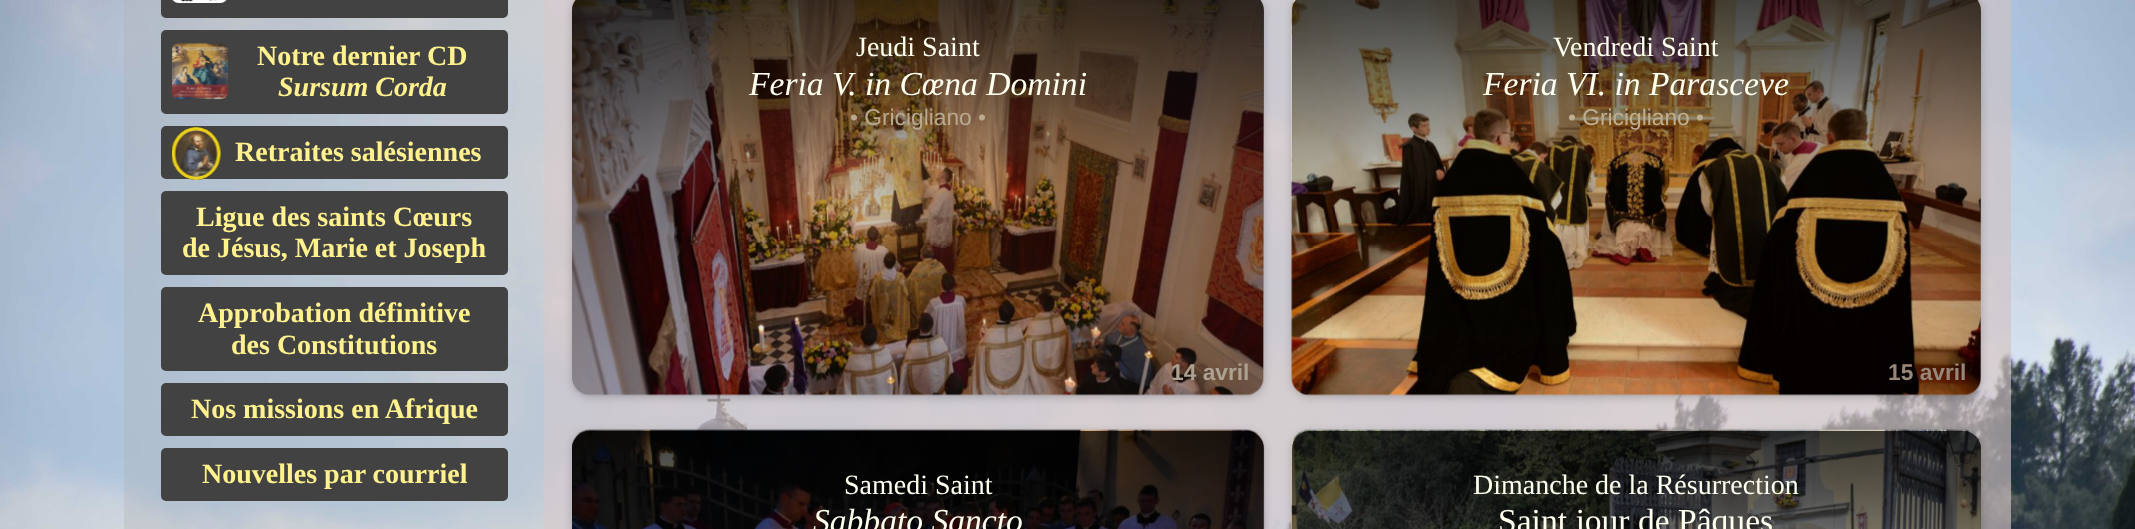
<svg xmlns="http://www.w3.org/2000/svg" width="2135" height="529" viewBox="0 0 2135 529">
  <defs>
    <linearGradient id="g1" gradientUnits="userSpaceOnUse" x1="918" y1="-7" x2="918" y2="396"><stop offset="0" stop-color="rgb(0,0,0)" stop-opacity="0.5"/><stop offset="1" stop-color="rgb(0,0,0)" stop-opacity="0"/></linearGradient>
    <linearGradient id="g2" gradientUnits="userSpaceOnUse" x1="918" y1="-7" x2="918" y2="163"><stop offset="0" stop-color="rgb(0,0,0)" stop-opacity="0.5"/><stop offset="1" stop-color="rgb(0,0,0)" stop-opacity="0"/></linearGradient>
    <linearGradient id="g3" gradientUnits="userSpaceOnUse" x1="1636" y1="-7" x2="1636" y2="396"><stop offset="0" stop-color="rgb(0,0,0)" stop-opacity="0.5"/><stop offset="1" stop-color="rgb(0,0,0)" stop-opacity="0"/></linearGradient>
    <linearGradient id="g4" gradientUnits="userSpaceOnUse" x1="1636" y1="-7" x2="1636" y2="163"><stop offset="0" stop-color="rgb(0,0,0)" stop-opacity="0.5"/><stop offset="1" stop-color="rgb(0,0,0)" stop-opacity="0"/></linearGradient>
    <linearGradient id="g5" gradientUnits="userSpaceOnUse" x1="918" y1="430" x2="918" y2="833"><stop offset="0" stop-color="rgb(0,0,0)" stop-opacity="0.5"/><stop offset="1" stop-color="rgb(0,0,0)" stop-opacity="0"/></linearGradient>
    <linearGradient id="g6" gradientUnits="userSpaceOnUse" x1="918" y1="430" x2="918" y2="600"><stop offset="0" stop-color="rgb(0,0,0)" stop-opacity="0.5"/><stop offset="1" stop-color="rgb(0,0,0)" stop-opacity="0"/></linearGradient>
    <linearGradient id="g7" gradientUnits="userSpaceOnUse" x1="1636" y1="430" x2="1636" y2="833"><stop offset="0" stop-color="rgb(0,0,0)" stop-opacity="0.5"/><stop offset="1" stop-color="rgb(0,0,0)" stop-opacity="0"/></linearGradient>
    <linearGradient id="g8" gradientUnits="userSpaceOnUse" x1="1636" y1="430" x2="1636" y2="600"><stop offset="0" stop-color="rgb(0,0,0)" stop-opacity="0.5"/><stop offset="1" stop-color="rgb(0,0,0)" stop-opacity="0"/></linearGradient>
  </defs>
  <rect width="100%" height="100%" fill="rgb(255,255,255)"/>
  <image x="0" y="0" width="2135" height="529" href="pic1.png"/>
  <rect x="124" y="0" width="1887" height="529" fill="rgba(175,175,175,0.3)"/>
  <rect x="161" y="-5" width="347" height="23" rx="5" fill="rgb(66,66,66)"/>
  <image x="172" y="0" width="55" height="3" href="pic2.png"/>
  <rect x="161" y="30" width="347" height="84" rx="5" fill="rgb(66,66,66)"/>
  <image x="172" y="43" width="56" height="57" href="pic3.png"/>
  <text x="257" y="65" font-family="Liberation Serif" font-size="28" font-weight="bold" fill="rgb(255,242,142)">Notre dernier CD</text>
  <text x="278" y="96" font-family="Liberation Serif" font-size="28" font-weight="bold" font-style="italic" fill="rgb(255,242,142)">Sursum Corda</text>
  <rect x="161" y="126" width="347" height="53" rx="5" fill="rgb(66,66,66)"/>
  <image x="172" y="127" width="49" height="53" href="pic4.png"/>
  <text x="235" y="161" font-family="Liberation Serif" font-size="28" font-weight="bold" fill="rgb(255,242,142)">Retraites salésiennes</text>
  <rect x="161" y="191" width="347" height="84" rx="5" fill="rgb(66,66,66)"/>
  <g font-family="Liberation Serif" font-size="28" font-weight="bold" fill="rgb(255,242,142)">
    <text x="196" y="226">Ligue des saints Cœurs</text>
    <text x="182" y="257">de Jésus, Marie et Joseph</text>
  </g>
  <rect x="161" y="287" width="347" height="84" rx="5" fill="rgb(66,66,66)"/>
  <g font-family="Liberation Serif" font-size="28" font-weight="bold" fill="rgb(255,242,142)">
    <text x="198" y="322">Approbation définitive</text>
    <text x="231" y="354">des Constitutions</text>
  </g>
  <rect x="161" y="383" width="347" height="53" rx="5" fill="rgb(66,66,66)"/>
  <text x="191" y="418" font-family="Liberation Serif" font-size="28" font-weight="bold" fill="rgb(255,242,142)">Nos missions en Afrique</text>
  <rect x="161" y="448" width="347" height="53" rx="5" fill="rgb(66,66,66)"/>
  <text x="202" y="483" font-family="Liberation Serif" font-size="28" font-weight="bold" fill="rgb(255,242,142)">Nouvelles par courriel</text>
  <rect x="544" y="0" width="1467" height="529" fill="rgba(218,199,202,0.5)"/>
  <rect x="572" y="-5" width="692" height="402" rx="18" fill="rgba(0,0,0,0.2)" filter="blur(4.5px)"/>
  <image x="572" y="0" width="692" height="396" href="pic5.png"/>
  <rect x="572" y="-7" width="692" height="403" rx="18" fill="url(#g1)"/>
  <path d="M590-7H1246C1256-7 1264 1 1264 11V163H572V11C572 1 580-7 590-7Z" fill="url(#g2)"/>
  <text x="856" y="56" font-family="Liberation Serif" font-size="28" fill="rgb(255,255,240)">Jeudi Saint</text>
  <text x="749" y="95" font-family="Liberation Serif" font-size="33.6" font-style="italic" fill="rgb(255,255,240)">Feria V. in Cœna Domini</text>
  <text x="850" y="125" font-family="Liberation Sans" font-size="22.75" fill="rgb(184,169,144)">• Gricigliano •</text>
  <text x="1171" y="380" font-family="Liberation Sans" font-size="22.75" font-weight="bold" fill="rgb(173,161,146)">14 avril</text>
  <rect x="1292" y="-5" width="689" height="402" rx="18" fill="rgba(0,0,0,0.2)" filter="blur(4.5px)"/>
  <image x="1291" y="0" width="690" height="396" href="pic6.png"/>
  <rect x="1292" y="-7" width="689" height="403" rx="18" fill="url(#g3)"/>
  <path d="M1310-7H1963C1973-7 1981 1 1981 11V163H1292V11C1292 1 1300-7 1310-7Z" fill="url(#g4)"/>
  <text x="1553" y="56" font-family="Liberation Serif" font-size="28" fill="rgb(255,255,240)">Vendredi Saint</text>
  <text x="1483" y="95" font-family="Liberation Serif" font-size="33.6" font-style="italic" fill="rgb(255,255,240)">Feria VI. in Parasceve</text>
  <text x="1568" y="125" font-family="Liberation Sans" font-size="22.75" fill="rgb(190,175,147)">• Gricigliano •</text>
  <text x="1888" y="380" font-family="Liberation Sans" font-size="22.75" font-weight="bold" fill="rgb(152,135,121)">15 avril</text>
  <rect x="572" y="432" width="692" height="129" rx="18" fill="rgba(0,0,0,0.2)" filter="blur(4.5px)"/>
  <image x="572" y="429" width="693" height="100" href="pic7.png"/>
  <rect x="572" y="431" width="692" height="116" rx="18" fill="url(#g5)"/>
  <path d="M590 431H1246C1256 431 1264 439 1264 449V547H572V449C572 439 580 431 590 431Z" fill="url(#g6)"/>
  <text x="844" y="494" font-family="Liberation Serif" font-size="28" fill="rgb(255,255,240)">Samedi Saint</text>
  <text x="813" y="532" font-family="Liberation Serif" font-size="33.6" font-style="italic" fill="rgb(255,255,240)">Sabbato Sancto</text>
  <rect x="1292" y="432" width="689" height="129" rx="18" fill="rgba(0,0,0,0.2)" filter="blur(4.5px)"/>
  <image x="1291" y="429" width="690" height="100" href="pic8.png"/>
  <rect x="1292" y="431" width="689" height="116" rx="18" fill="url(#g7)"/>
  <path d="M1310 431H1963C1973 431 1981 439 1981 449V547H1292V449C1292 439 1300 431 1310 431Z" fill="url(#g8)"/>
  <text x="1473" y="494" font-family="Liberation Serif" font-size="28" fill="rgb(255,255,240)">Dimanche de la Résurrection</text>
  <text x="1498" y="532" font-family="Liberation Serif" font-size="33.6" fill="rgb(255,255,240)">Saint jour de Pâques</text>
</svg>
